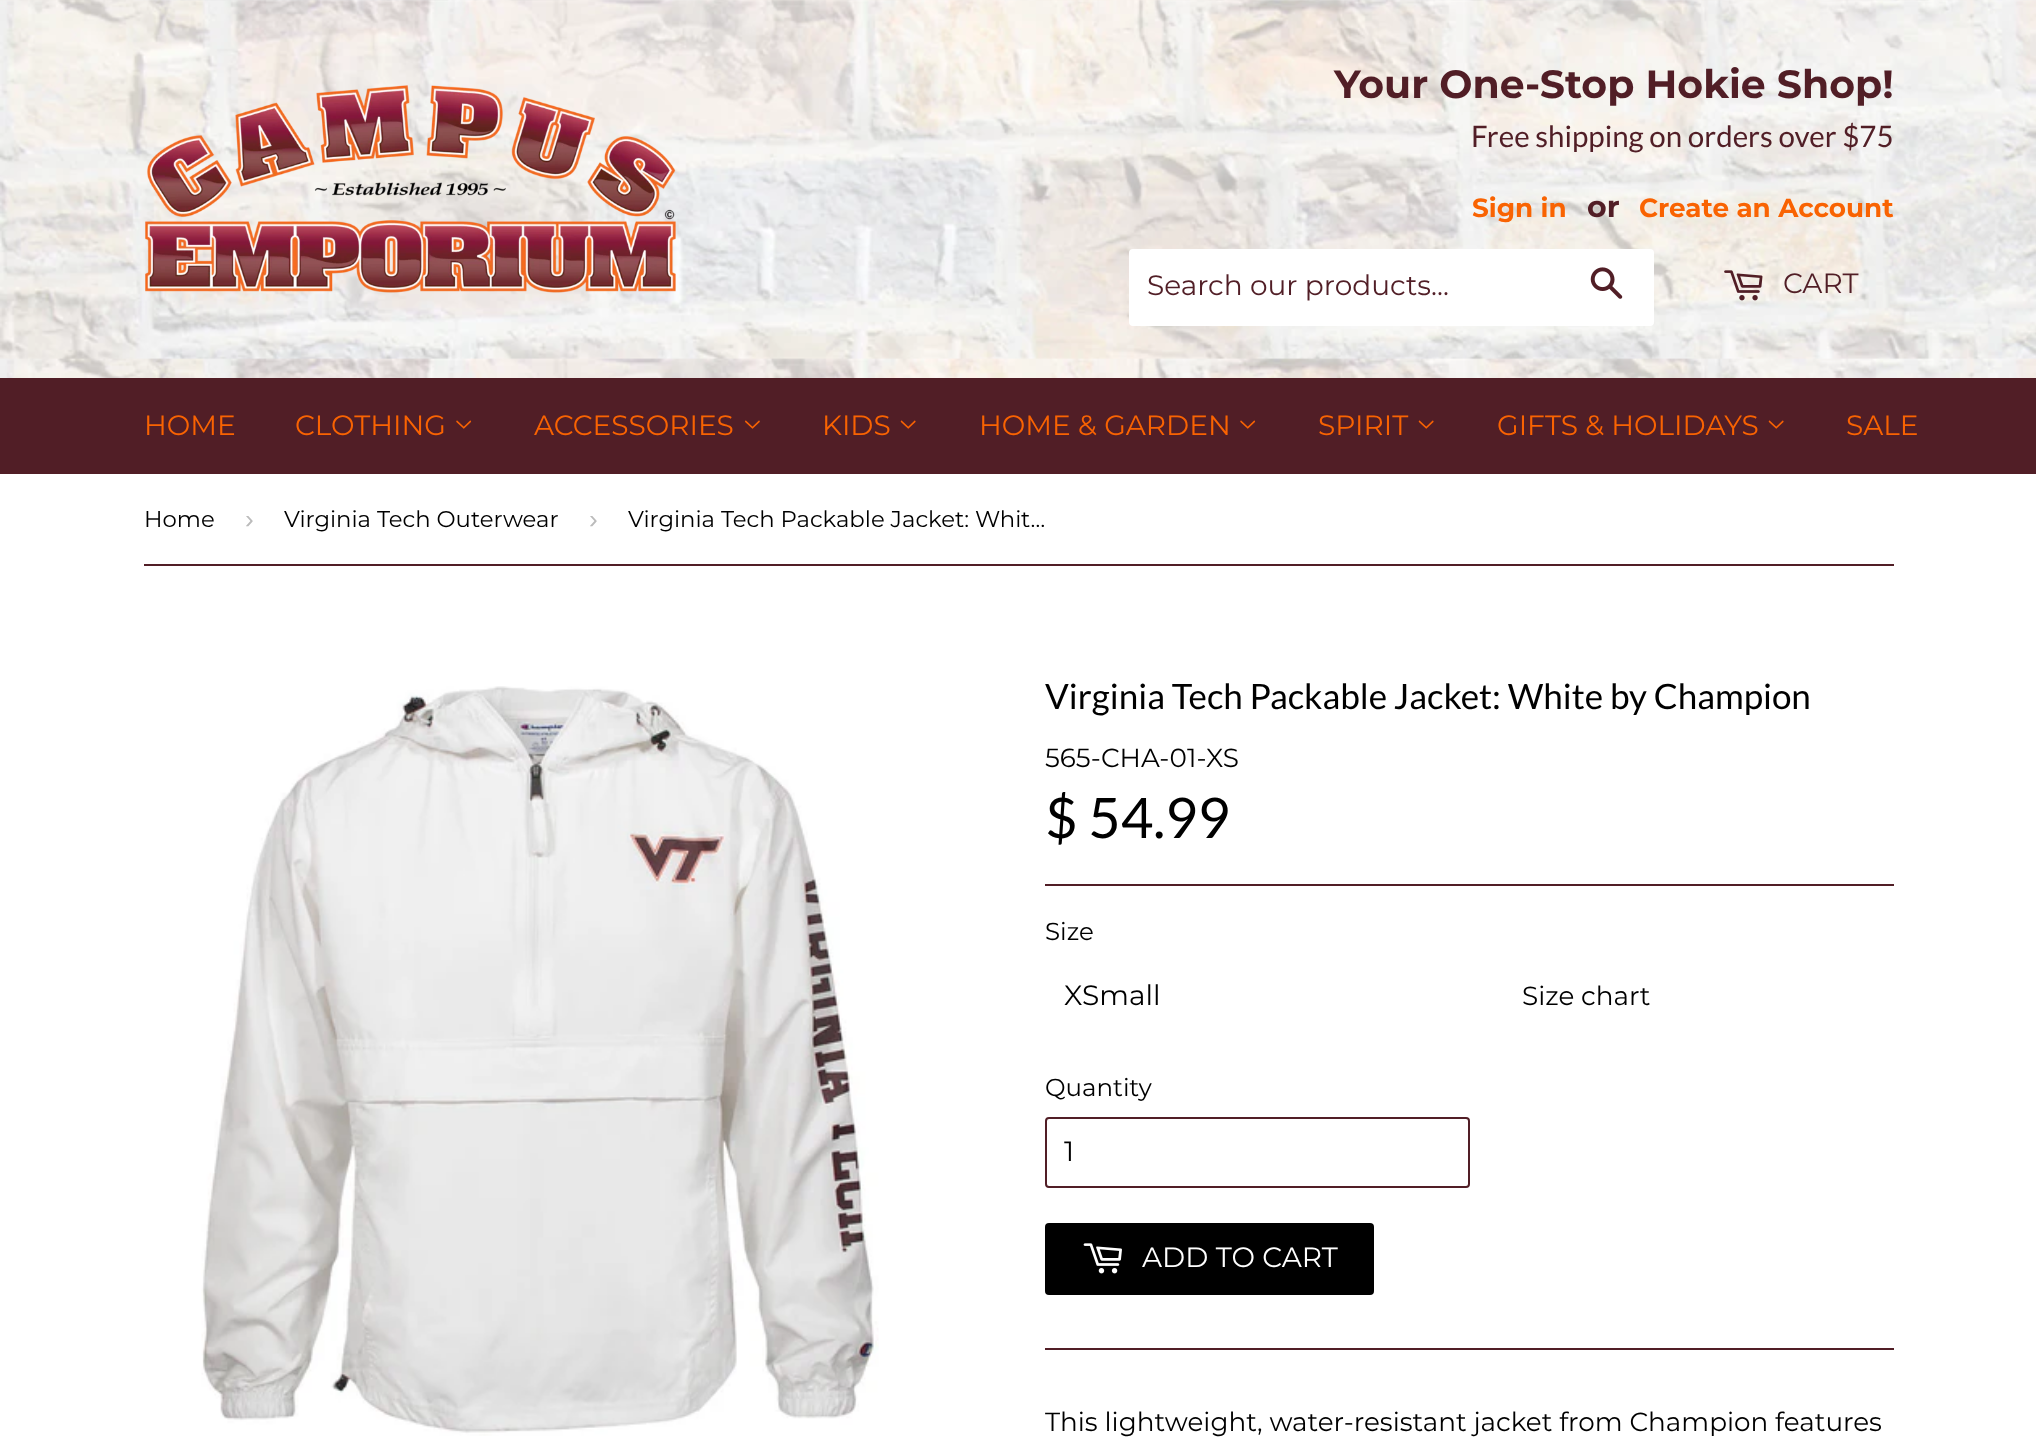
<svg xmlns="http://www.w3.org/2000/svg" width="2036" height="1437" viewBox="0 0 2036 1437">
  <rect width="100%" height="100%" fill="rgb(255,255,255)"/>
  <image x="0" y="0" width="2036" height="378" href="pic1.png"/>
  <image x="145" y="85" width="531" height="208" href="pic2.png"/>
  <text x="1334" y="98" font-family="Montserrat" font-size="39.4" font-weight="bold" fill="rgb(81,30,38)">Your One-Stop Hokie Shop!</text>
  <text x="1471" y="147" font-family="Lato" font-size="29.5" fill="rgb(81,30,38)">Free shipping on orders over $75</text>
  <text x="1472" y="217" font-family="Montserrat" font-size="26.25" font-weight="bold" fill="rgb(249,99,2)">Sign in</text>
  <text x="1587" y="217" font-family="Montserrat" font-size="30" font-weight="bold" fill="rgb(81,30,38)">or</text>
  <text x="1639" y="217" font-family="Montserrat" font-size="26.25" font-weight="bold" fill="rgb(249,99,2)">Create an Account</text>
  <rect x="1129" y="249" width="525" height="77" rx="4" fill="rgb(255,255,255)"/>
  <text x="1147" y="295" font-family="Montserrat" font-size="28" fill="rgb(81,30,38)">Search our products...</text>
  <image x="1590" y="267" width="33" height="32" href="pic3.png"/>
  <image x="1724" y="270" width="39" height="31" href="pic4.png"/>
  <text x="1783" y="293" font-family="Montserrat" font-size="28" fill="rgb(81,30,38)">CART</text>
  <rect x="0" y="378" width="2036" height="96" fill="rgb(81,30,38)"/>
  <g font-family="Montserrat" font-size="28" fill="rgb(249,99,2)">
    <text x="144" y="435">HOME</text>
    <text x="295" y="435">CLOTHING</text>
  </g>
  <image x="456" y="420" width="16" height="9" href="pic5.png"/>
  <text x="534" y="435" font-family="Montserrat" font-size="28" fill="rgb(249,99,2)">ACCESSORIES</text>
  <image x="745" y="420" width="15" height="9" href="pic6.png"/>
  <text x="822" y="435" font-family="Montserrat" font-size="28" fill="rgb(249,99,2)">KIDS</text>
  <image x="900" y="420" width="16" height="9" href="pic7.png"/>
  <text x="979" y="435" font-family="Montserrat" font-size="28" fill="rgb(249,99,2)">HOME &amp; GARDEN</text>
  <image x="1240" y="420" width="16" height="9" href="pic5.png"/>
  <text x="1318" y="435" font-family="Montserrat" font-size="28" fill="rgb(249,99,2)">SPIRIT</text>
  <image x="1418" y="420" width="16" height="9" href="pic7.png"/>
  <text x="1497" y="435" font-family="Montserrat" font-size="28" fill="rgb(249,99,2)">GIFTS &amp; HOLIDAYS</text>
  <image x="1768" y="420" width="16" height="9" href="pic7.png"/>
  <text x="1846" y="435" font-family="Montserrat" font-size="28" fill="rgb(249,99,2)">SALE</text>
  <rect x="144" y="564" width="1750" height="2" fill="rgb(81,30,38)"/>
  <text x="144" y="527" font-family="Montserrat" font-size="22.75" fill="rgb(0,0,0)">Home</text>
  <text x="245" y="528" font-family="Liberation Sans" font-size="26.25" fill="rgb(187,187,187)">›</text>
  <text x="284" y="527" font-family="Montserrat" font-size="22.75" fill="rgb(0,0,0)">Virginia Tech Outerwear</text>
  <text x="589" y="528" font-family="Liberation Sans" font-size="26.25" fill="rgb(187,187,187)">›</text>
  <text x="628" y="527" font-family="Montserrat" font-size="22.75" fill="rgb(0,0,0)">Virginia Tech Packable Jacket: Whit…</text>
  <image x="201" y="686" width="678" height="750" href="pic8.png"/>
  <text x="1045" y="709" font-family="Lato" font-size="35" fill="rgb(0,0,0)">Virginia Tech Packable Jacket: White by Champion</text>
  <text x="1045" y="767" font-family="Montserrat" font-size="26.25" fill="rgb(0,0,0)">565-CHA-01-XS</text>
  <text x="1045" y="838" font-family="Lato" font-size="56" fill="rgb(0,0,0)">$ 54.99</text>
  <rect x="1045" y="884" width="849" height="2" fill="rgb(81,30,38)"/>
  <text x="1045" y="940" font-family="Montserrat" font-size="24.5" fill="rgb(0,0,0)">Size</text>
  <text x="1064" y="1005" font-family="Montserrat" font-size="28" fill="rgb(0,0,0)">XSmall</text>
  <text x="1522" y="1005" font-family="Montserrat" font-size="26.25" fill="rgb(0,0,0)">Size chart</text>
  <text x="1045" y="1096" font-family="Montserrat" font-size="24.5" fill="rgb(0,0,0)">Quantity</text>
  <rect x="1046" y="1118" width="423" height="69" rx="3" fill="none" stroke="rgb(81,30,38)" stroke-width="2"/>
  <text x="1064" y="1161" font-family="Montserrat" font-size="28" fill="rgb(0,0,0)">1</text>
  <rect x="1045" y="1223" width="329" height="72" rx="4" fill="rgb(0,0,0)"/>
  <image x="1083" y="1243" width="39" height="31" href="pic9.png"/>
  <text x="1142" y="1267" font-family="Montserrat" font-size="28" fill="rgb(255,255,255)">ADD TO CART</text>
  <rect x="1045" y="1348" width="849" height="2" fill="rgb(81,30,38)"/>
  <text x="1045" y="1431" font-family="Montserrat" font-size="26.25" fill="rgb(0,0,0)">This lightweight, water-resistant jacket from Champion features</text>
</svg>
